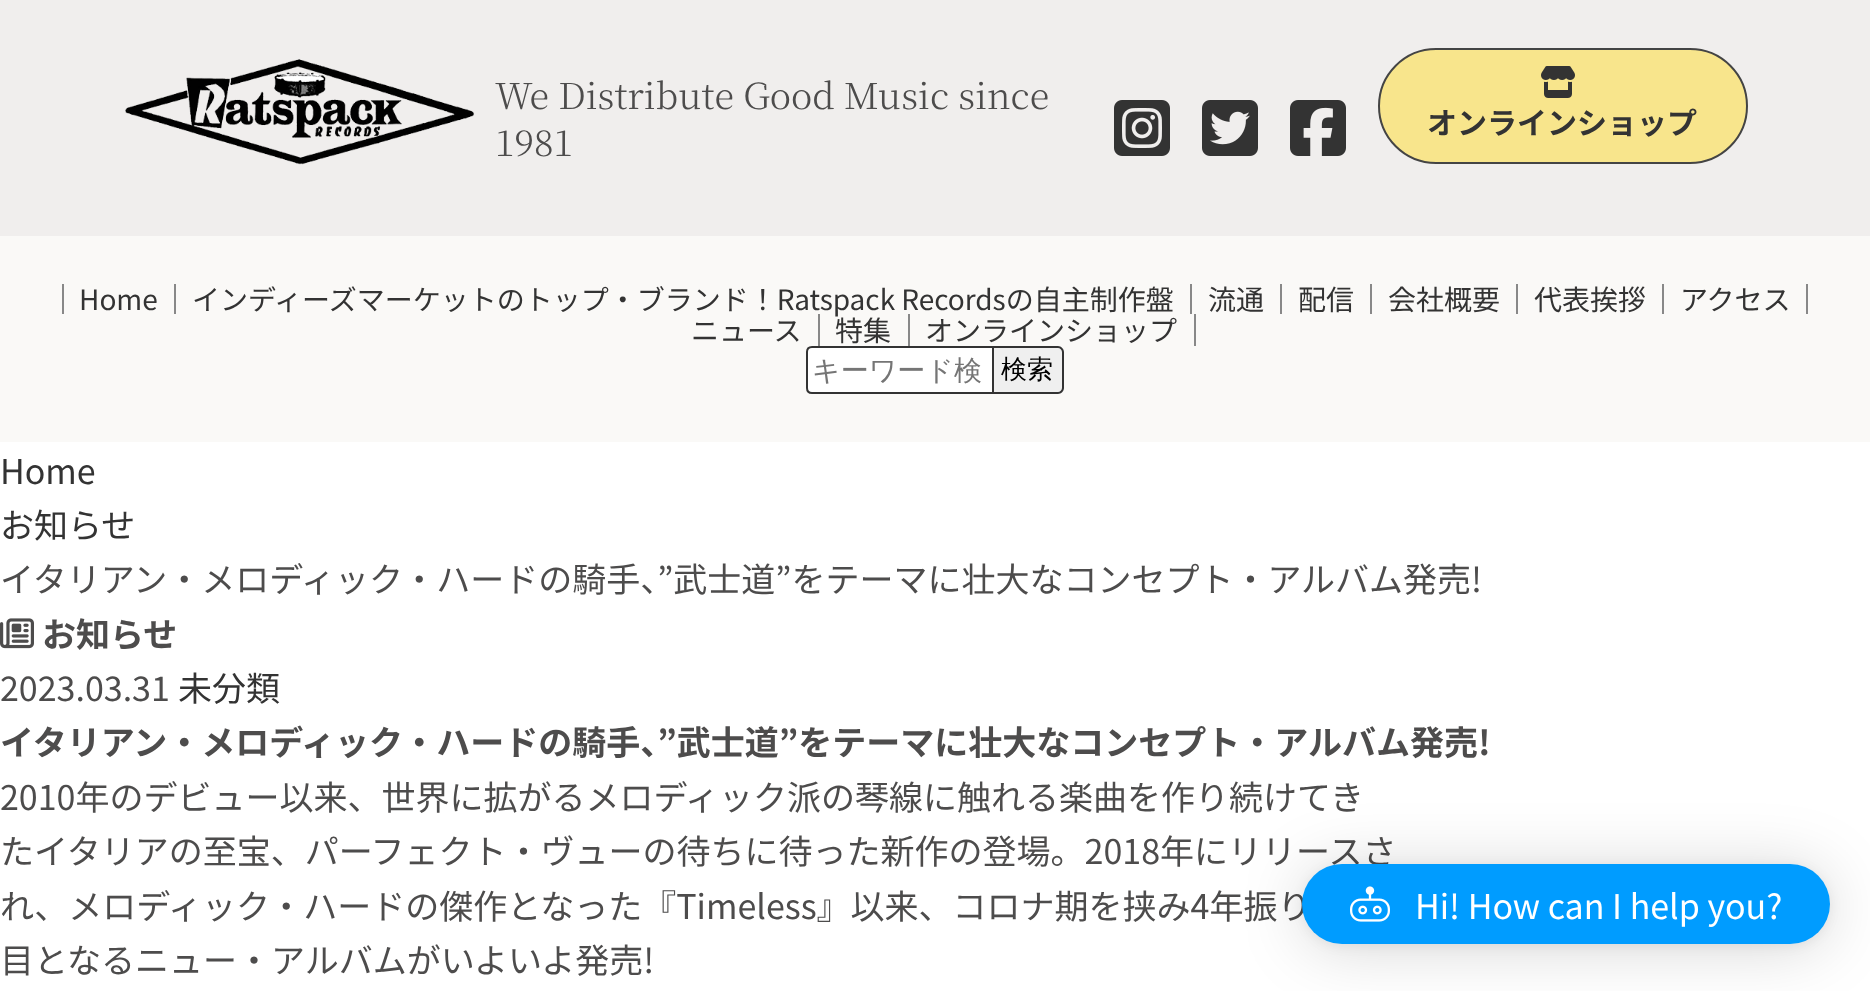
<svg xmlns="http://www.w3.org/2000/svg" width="1870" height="991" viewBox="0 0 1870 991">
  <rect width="100%" height="100%" fill="rgb(255,255,255)"/>
  <rect x="0" y="0" width="1870" height="236" fill="rgb(240,238,237)"/>
  <image x="125" y="59" width="350" height="106" href="pic1.png"/>
  <g font-family="Noto Serif JP" font-size="36" font-weight="300" fill="rgb(77,76,76)">
    <text>
      <tspan x="495" y="109">We Distribute Good Music since</tspan>
      <tspan x="495" y="156">1981</tspan>
    </text>
  </g>
  <image x="1114" y="100" width="56" height="56" href="pic2.png"/>
  <image x="1202" y="100" width="56" height="56" href="pic3.png"/>
  <image x="1290" y="100" width="56" height="56" href="pic4.png"/>
  <rect x="1379" y="49" width="368" height="114" rx="57" fill="rgb(248,229,140)" stroke="rgb(68,68,68)" stroke-width="2"/>
  <image x="1541" y="66" width="34" height="32" href="pic5.png"/>
  <text x="1427" y="134" font-family="Noto Sans JP" font-size="30" font-weight="bold" fill="rgb(51,51,51)">オンラインショップ</text>
  <rect x="0" y="236" width="1870" height="206" fill="rgb(250,249,247)"/>
  <rect x="174" y="284" width="2" height="30" fill="rgb(136,136,136)"/>
  <rect x="62" y="284" width="2" height="30" fill="rgb(136,136,136)"/>
  <text x="79" y="310" font-family="Noto Sans JP" font-size="28" fill="rgb(51,51,51)">Home</text>
  <rect x="1190" y="284" width="2" height="30" fill="rgb(136,136,136)"/>
  <text x="192" y="310" font-family="Noto Sans JP" font-size="28" fill="rgb(51,51,51)">インディーズマーケットのトップ・ブランド！Ratspack Recordsの自主制作盤</text>
  <rect x="1280" y="284" width="2" height="30" fill="rgb(136,136,136)"/>
  <text x="1208" y="310" font-family="Noto Sans JP" font-size="28" fill="rgb(51,51,51)">流通</text>
  <rect x="1370" y="284" width="2" height="30" fill="rgb(136,136,136)"/>
  <text x="1298" y="310" font-family="Noto Sans JP" font-size="28" fill="rgb(51,51,51)">配信</text>
  <rect x="1516" y="284" width="2" height="30" fill="rgb(136,136,136)"/>
  <text x="1388" y="310" font-family="Noto Sans JP" font-size="28" fill="rgb(51,51,51)">会社概要</text>
  <rect x="1662" y="284" width="2" height="30" fill="rgb(136,136,136)"/>
  <text x="1534" y="310" font-family="Noto Sans JP" font-size="28" fill="rgb(51,51,51)">代表挨拶</text>
  <rect x="1806" y="284" width="2" height="30" fill="rgb(136,136,136)"/>
  <text x="1680" y="310" font-family="Noto Sans JP" font-size="28" fill="rgb(51,51,51)">アクセス</text>
  <rect x="818" y="314" width="2" height="32" fill="rgb(136,136,136)"/>
  <text x="691" y="341" font-family="Noto Sans JP" font-size="28" fill="rgb(51,51,51)">ニュース</text>
  <rect x="908" y="314" width="2" height="32" fill="rgb(136,136,136)"/>
  <text x="835" y="341" font-family="Noto Sans JP" font-size="28" fill="rgb(51,51,51)">特集</text>
  <rect x="1194" y="314" width="2" height="32" fill="rgb(136,136,136)"/>
  <text x="925" y="341" font-family="Noto Sans JP" font-size="28" fill="rgb(51,51,51)">オンラインショップ</text>
  <path d="M812 347H993V393H812C809 393 807 391 807 388V352C807 349 809 347 812 347Z" fill="rgb(255,255,255)" stroke="rgb(51,51,51)" stroke-width="2"/>
  <text x="812" y="380" font-family="WenQuanYi Zen Hei" font-size="28" font-weight="500" fill="rgb(117,117,117)">キーワード検</text>
  <path d="M994 346H1058C1061.5 346 1064 348.5 1064 352V388C1064 391.5 1061.5 394 1058 394H994Z" fill="rgb(239,239,239)"/>
  <path d="M994 346H1058C1061 346 1064 349 1064 352V388C1064 391 1061 394 1058 394H994ZM994 348H1058C1060 348 1062 350 1062 352V388C1062 390 1060 392 1058 392H994Z" fill="rgb(51,51,51)" fill-rule="evenodd"/>
  <text x="1001" y="378" font-family="WenQuanYi Zen Hei" font-size="26" font-weight="500" fill="rgb(0,0,0)">検索</text>
  <g font-family="Noto Sans JP" font-size="34" fill="rgb(51,51,51)">
    <text>
      <tspan x="0" y="484">Home</tspan>
      <tspan x="0" y="538">お知らせ</tspan>
    </text>
  </g>
  <text x="0" y="592" font-family="Noto Sans JP" font-size="34" fill="rgb(77,76,76)">イタリアン・メロディック・ハードの騎手、”武士道”をテーマに壮大なコンセプト・アルバム発売!</text>
  <image x="0" y="618" width="34" height="31" href="pic6.png"/>
  <text x="42" y="647" font-family="Noto Sans JP" font-size="34" font-weight="bold" fill="rgb(77,76,76)">お知らせ</text>
  <text x="0" y="701" font-family="Noto Sans JP" font-size="34" fill="rgb(77,76,76)">2023.03.31</text>
  <text x="178" y="701" font-family="Noto Sans JP" font-size="34" fill="rgb(51,51,51)">未分類</text>
  <text x="0" y="755" font-family="Noto Sans JP" font-size="34" font-weight="bold" fill="rgb(77,76,76)">イタリアン・メロディック・ハードの騎手、”武士道”をテーマに壮大なコンセプト・アルバム発売!</text>
  <g font-family="Noto Sans JP" font-size="34" fill="rgb(77,76,76)">
    <text>
      <tspan x="0" y="810">2010年のデビュー以来、世界に拡がるメロディック派の琴線に触れる楽曲を作り続けてき</tspan>
      <tspan x="0" y="864">たイタリアの至宝、パーフェクト・ヴューの待ちに待った新作の登場。2018年にリリースさ</tspan>
      <tspan x="0" y="919">れ、メロディック・ハードの傑作となった『Timeless』以来、コロナ期を挟み4年振り</tspan>
      <tspan x="0" y="973">目となるニュー・アルバムがいよいよ発売!</tspan>
    </text>
  </g>
  <rect x="1302" y="868" width="528" height="80" rx="40" fill="rgba(0,0,0,0.16)" filter="blur(32px)"/>
  <rect x="1302" y="866" width="528" height="80" rx="40" fill="rgba(0,0,0,0.06)" filter="blur(6px)"/>
  <rect x="1302" y="864" width="528" height="80" rx="40" fill="rgb(0,156,255)"/>
  <image x="1350" y="886" width="40" height="36" href="pic7.png"/>
  <text x="1415" y="919" font-family="Noto Sans JP" font-size="34" fill="rgb(255,255,255)">Hi! How can I help you?</text>
</svg>
